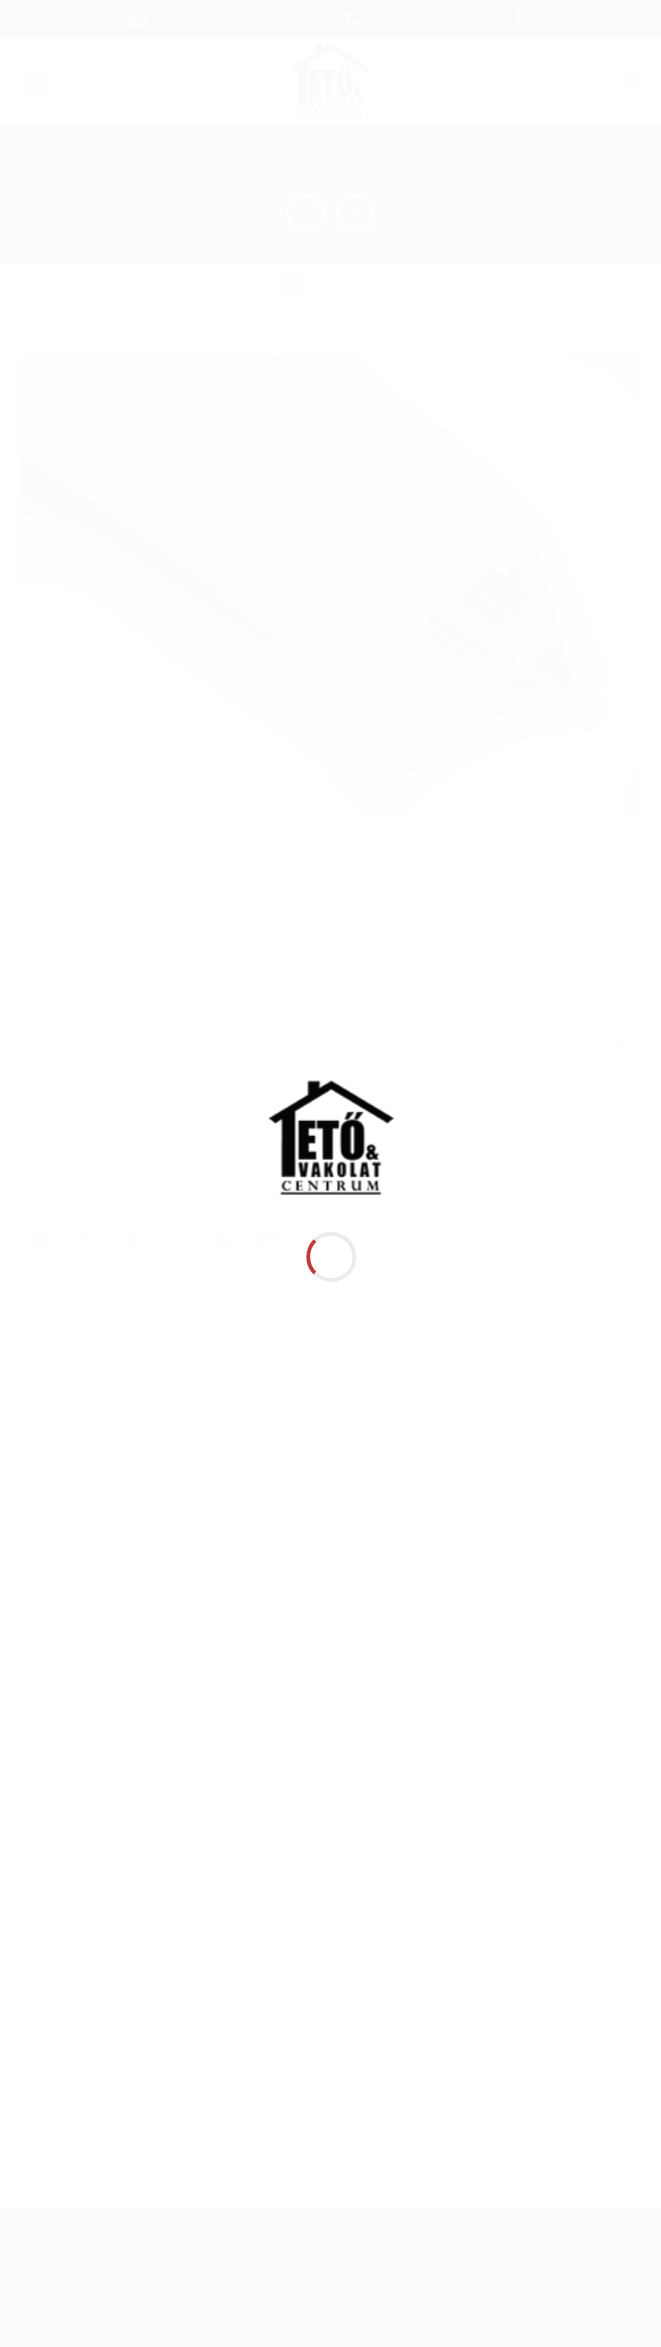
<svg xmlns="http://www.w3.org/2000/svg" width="661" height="2347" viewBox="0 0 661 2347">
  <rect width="100%" height="100%" fill="rgb(251,251,251)"/>
  <rect x="0" y="38" width="661" height="2170" fill="rgb(255,255,255)"/>
  <image x="130" y="11" width="17" height="14" href="pic1.png"/>
  <image x="344" y="10" width="16" height="16" href="pic2.png"/>
  <image x="515" y="9" width="7" height="16" href="pic3.png"/>
  <image x="21" y="73" width="26" height="19" href="pic4.png"/>
  <image x="290" y="43" width="82" height="76" href="pic5.png"/>
  <image x="623" y="70" width="20" height="20" href="pic6.png"/>
  <rect x="0" y="125" width="661" height="139" fill="rgb(253,252,252)"/>
  <circle cx="305.5" cy="213.5" r="18" fill="none" stroke="rgb(255,255,255)" stroke-width="3"/>
  <image x="302" y="206" width="7" height="11" href="pic7.png"/>
  <circle cx="355.5" cy="213.5" r="18" fill="none" stroke="rgb(255,255,255)" stroke-width="3"/>
  <image x="352" y="206" width="7" height="11" href="pic8.png"/>
  <image x="281" y="276" width="21" height="18" href="pic9.png"/>
  <image x="18" y="352" width="625" height="468" href="pic10.png"/>
  <path d="M617.5 1039L622.5 1044L627.5 1039" fill="none" stroke="rgb(251,251,251)" stroke-width="1.7" stroke-linecap="round" stroke-linejoin="round"/>
  <image x="31" y="1230" width="20" height="20" href="pic11.png"/>
  <image x="81" y="1230" width="10" height="20" href="pic12.png"/>
  <image x="121" y="1232" width="20" height="17" href="pic13.png"/>
  <image x="166" y="1232" width="20" height="17" href="pic14.png"/>
  <image x="211" y="1230" width="20" height="20" href="pic15.png"/>
  <image x="257" y="1230" width="21" height="20" href="pic16.png"/>
  <image x="306" y="1230" width="13" height="20" href="pic17.png"/>
  <image x="268" y="1080" width="127" height="115" href="pic18.png"/>
  <path d="M315 1240.5C319 1236 325 1234 331 1234C359 1234 363 1274 336 1279.5C328.5 1281 320.5 1278.5 315 1273" fill="none" stroke="rgb(235,235,235)" stroke-width="3.8"/>
  <path d="M315 1273C306 1264.5 306 1249.5 315 1240.5" fill="none" stroke="rgba(178,0,0,0.78)" stroke-width="3.8"/>
</svg>
